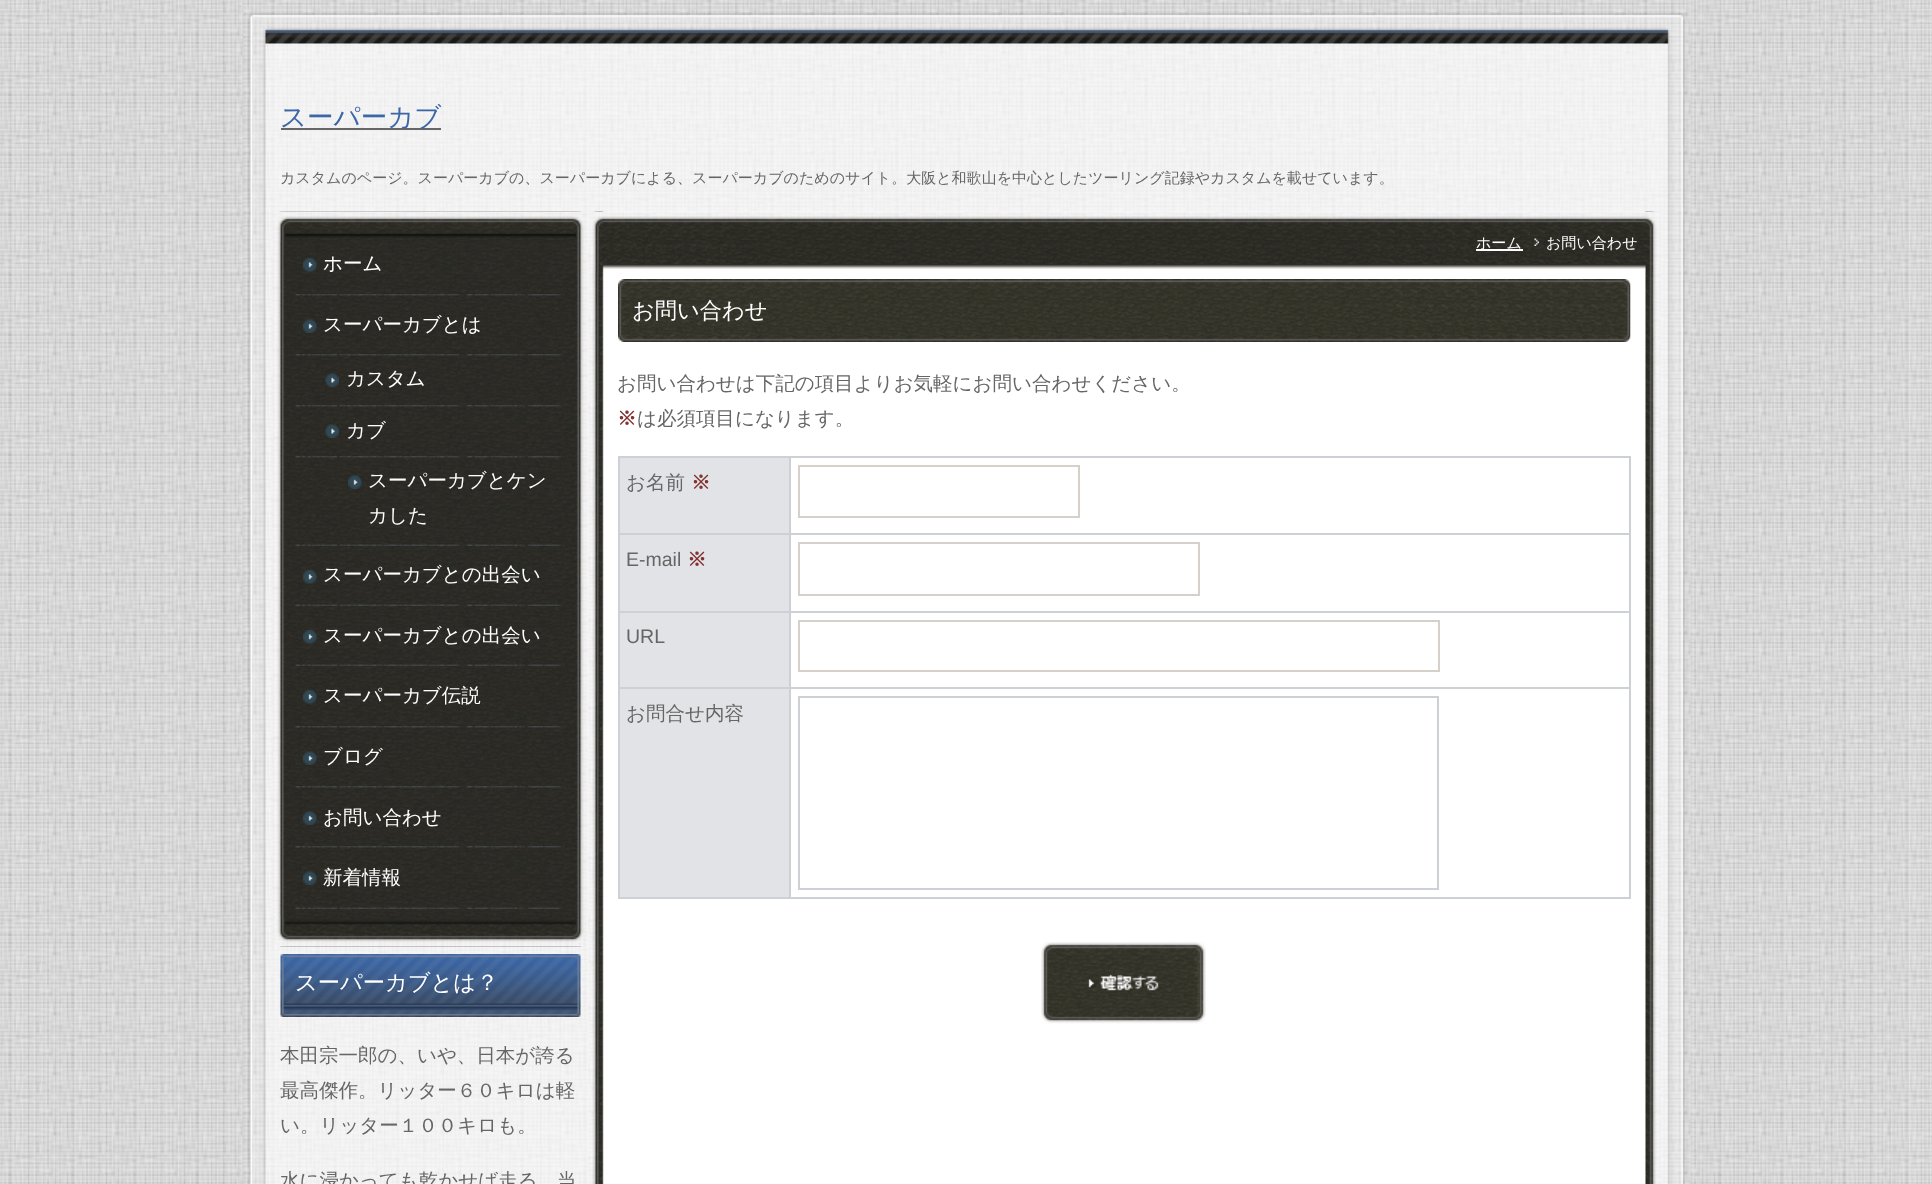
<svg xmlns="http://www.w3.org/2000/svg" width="1932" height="1184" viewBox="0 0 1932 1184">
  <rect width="100%" height="100%" fill="rgb(255,255,255)"/>
  <image x="0" y="0" width="1932" height="1184" href="pic1.png"/>
  <image x="243" y="0" width="1448" height="1184" href="pic2.png"/>
  <image x="243" y="0" width="1448" height="44" href="pic3.png"/>
  <rect x="281" y="128" width="160" height="2" fill="rgb(102,102,102)"/>
  <text x="280" y="126" font-family="WenQuanYi Zen Hei" font-size="26.5" font-weight="500" fill="rgb(60,103,167)">スーパーカブ</text>
  <text x="280" y="183" font-family="WenQuanYi Zen Hei" font-size="15.02" font-weight="500" fill="rgb(102,102,102)">カスタムのページ。スーパーカブの、スーパーカブによる、スーパーカブのためのサイト。大阪と和歌山を中心としたツーリング記録やカスタムを載せています。</text>
  <image x="273" y="211" width="315" height="736" href="pic4.png"/>
  <image x="273" y="211" width="315" height="31" href="pic5.png"/>
  <image x="273" y="916" width="312" height="31" href="pic6.png"/>
  <image x="295" y="294" width="269" height="2" href="pic7.png"/>
  <image x="303" y="258" width="14" height="14" href="pic8.png"/>
  <text x="323" y="270" font-family="WenQuanYi Zen Hei" font-size="19.5" font-weight="500" fill="rgb(255,255,255)">ホーム</text>
  <image x="295" y="544" width="269" height="2" href="pic9.png"/>
  <image x="303" y="319" width="14" height="14" href="pic10.png"/>
  <text x="323" y="331" font-family="WenQuanYi Zen Hei" font-size="19.5" font-weight="500" fill="rgb(255,255,255)">スーパーカブとは</text>
  <image x="295" y="354" width="270" height="2" href="pic11.png"/>
  <image x="325" y="373" width="14" height="14" href="pic12.png"/>
  <text x="346" y="385" font-family="WenQuanYi Zen Hei" font-size="19.5" font-weight="500" fill="rgb(255,255,255)">カスタム</text>
  <image x="295" y="405" width="269" height="2" href="pic13.png"/>
  <image x="325" y="424" width="14" height="14" href="pic14.png"/>
  <text x="346" y="437" font-family="WenQuanYi Zen Hei" font-size="19.5" font-weight="500" fill="rgb(255,255,255)">カブ</text>
  <image x="295" y="456" width="269" height="2" href="pic15.png"/>
  <image x="348" y="475" width="14" height="14" href="pic16.png"/>
  <g font-family="WenQuanYi Zen Hei" font-size="19.5" font-weight="500" fill="rgb(255,255,255)">
    <text>
      <tspan x="368" y="487">スーパーカブとケン</tspan>
      <tspan x="368" y="522">カした</tspan>
    </text>
  </g>
  <image x="295" y="604" width="269" height="2" href="pic17.png"/>
  <image x="303" y="570" width="14" height="14" href="pic18.png"/>
  <text x="323" y="581" font-family="WenQuanYi Zen Hei" font-size="19.5" font-weight="500" fill="rgb(255,255,255)">スーパーカブとの出会い</text>
  <image x="295" y="664" width="269" height="2" href="pic19.png"/>
  <image x="303" y="630" width="14" height="14" href="pic20.png"/>
  <text x="323" y="642" font-family="WenQuanYi Zen Hei" font-size="19.5" font-weight="500" fill="rgb(255,255,255)">スーパーカブとの出会い</text>
  <image x="295" y="726" width="270" height="2" href="pic21.png"/>
  <image x="303" y="690" width="14" height="14" href="pic22.png"/>
  <text x="323" y="702" font-family="WenQuanYi Zen Hei" font-size="19.5" font-weight="500" fill="rgb(255,255,255)">スーパーカブ伝説</text>
  <image x="295" y="786" width="269" height="2" href="pic23.png"/>
  <image x="303" y="751" width="14" height="14" href="pic24.png"/>
  <text x="323" y="763" font-family="WenQuanYi Zen Hei" font-size="19.5" font-weight="500" fill="rgb(255,255,255)">ブログ</text>
  <image x="295" y="846" width="269" height="2" href="pic25.png"/>
  <image x="303" y="811" width="14" height="14" href="pic26.png"/>
  <text x="323" y="824" font-family="WenQuanYi Zen Hei" font-size="19.5" font-weight="500" fill="rgb(255,255,255)">お問い合わせ</text>
  <image x="295" y="907" width="269" height="2" href="pic27.png"/>
  <image x="303" y="871" width="14" height="14" href="pic28.png"/>
  <text x="323" y="884" font-family="WenQuanYi Zen Hei" font-size="19.5" font-weight="500" fill="rgb(255,255,255)">新着情報</text>
  <image x="280" y="954" width="301" height="63" href="pic29.png"/>
  <text x="295" y="990" font-family="WenQuanYi Zen Hei" font-size="22.25" font-weight="500" fill="rgb(255,255,255)">スーパーカブとは？</text>
  <g font-family="WenQuanYi Zen Hei" font-size="19.5" font-weight="500" fill="rgb(102,102,102)">
    <text>
      <tspan x="280" y="1062">本田宗一郎の、いや、日本が誇る</tspan>
      <tspan x="280" y="1097">最高傑作。リッター６０キロは軽</tspan>
      <tspan x="280" y="1132">い。リッター１００キロも。</tspan>
    </text>
    <text x="280" y="1187">水に浸かっても乾かせば走る。当</text>
  </g>
  <image x="588" y="211" width="1073" height="973" href="pic30.png"/>
  <image x="588" y="211" width="1073" height="61" href="pic31.png"/>
  <rect x="1476" y="249" width="47" height="2" fill="rgb(255,255,255)"/>
  <text x="1476" y="248" font-family="WenQuanYi Zen Hei" font-size="15.02" font-weight="500" fill="rgb(255,255,255)">ホーム</text>
  <image x="1534" y="238" width="5" height="8" href="pic32.png"/>
  <text x="1546" y="248" font-family="WenQuanYi Zen Hei" font-size="15.02" font-weight="500" fill="rgb(255,255,255)">お問い合わせ</text>
  <image x="618" y="279" width="1013" height="63" href="pic33.png"/>
  <text x="632" y="318" font-family="WenQuanYi Zen Hei" font-size="22.25" font-weight="500" fill="rgb(255,255,255)">お問い合わせ</text>
  <text x="617" y="390" font-family="WenQuanYi Zen Hei" font-size="19.5" font-weight="500" fill="rgb(102,102,102)">お問い合わせは下記の項目よりお気軽にお問い合わせください。</text>
  <text x="617" y="425" font-family="WenQuanYi Zen Hei" font-size="19.5" font-weight="bold" fill="rgb(131,49,49)">※</text>
  <text x="637" y="425" font-family="WenQuanYi Zen Hei" font-size="19.5" font-weight="500" fill="rgb(102,102,102)">は必須項目になります。</text>
  <rect x="618" y="456" width="1013" height="2" fill="rgb(205,208,212)"/>
  <rect x="618" y="456" width="2" height="443" fill="rgb(205,208,212)"/>
  <rect x="620" y="458" width="169" height="75" fill="rgb(225,227,230)"/>
  <rect x="1629" y="456" width="2" height="443" fill="rgb(205,208,212)"/>
  <rect x="789" y="897" width="842" height="2" fill="rgb(205,208,212)"/>
  <rect x="789" y="687" width="2" height="212" fill="rgb(205,208,212)"/>
  <rect x="789" y="687" width="842" height="2" fill="rgb(205,208,212)"/>
  <rect x="789" y="611" width="2" height="78" fill="rgb(205,208,212)"/>
  <rect x="789" y="611" width="842" height="2" fill="rgb(205,208,212)"/>
  <rect x="789" y="533" width="2" height="79" fill="rgb(205,208,212)"/>
  <rect x="789" y="533" width="842" height="2" fill="rgb(205,208,212)"/>
  <rect x="789" y="456" width="2" height="78" fill="rgb(205,208,212)"/>
  <rect x="618" y="533" width="173" height="2" fill="rgb(205,208,212)"/>
  <text x="626" y="489" font-family="WenQuanYi Zen Hei" font-size="19.5" font-weight="500" fill="rgb(102,102,102)">お名前</text>
  <text x="691" y="489" font-family="WenQuanYi Zen Hei" font-size="19.5" font-weight="bold" fill="rgb(131,49,49)">※</text>
  <rect x="799" y="466" width="280" height="51" fill="none" stroke="rgb(214,208,203)" stroke-width="2"/>
  <rect x="620" y="535" width="169" height="76" fill="rgb(225,227,230)"/>
  <rect x="618" y="611" width="173" height="2" fill="rgb(205,208,212)"/>
  <text x="626" y="566" font-family="Liberation Sans" font-size="19.5" fill="rgb(102,102,102)">E-mail</text>
  <text x="687" y="566" font-family="WenQuanYi Zen Hei" font-size="19.5" font-weight="bold" fill="rgb(131,49,49)">※</text>
  <rect x="799" y="543" width="400" height="52" fill="none" stroke="rgb(214,208,203)" stroke-width="2"/>
  <rect x="620" y="613" width="169" height="74" fill="rgb(225,227,230)"/>
  <rect x="618" y="687" width="173" height="2" fill="rgb(205,208,212)"/>
  <text x="626" y="643" font-family="Liberation Sans" font-size="19.5" fill="rgb(102,102,102)">URL</text>
  <rect x="799" y="621" width="640" height="50" fill="none" stroke="rgb(214,208,203)" stroke-width="2"/>
  <rect x="620" y="689" width="169" height="208" fill="rgb(225,227,230)"/>
  <rect x="618" y="897" width="173" height="2" fill="rgb(205,208,212)"/>
  <text x="626" y="720" font-family="WenQuanYi Zen Hei" font-size="19.5" font-weight="500" fill="rgb(102,102,102)">お問合せ内容</text>
  <rect x="799" y="697" width="639" height="192" fill="none" stroke="rgb(205,208,212)" stroke-width="2"/>
  <image x="1041" y="941" width="165" height="83" href="pic34.png"/>
</svg>
